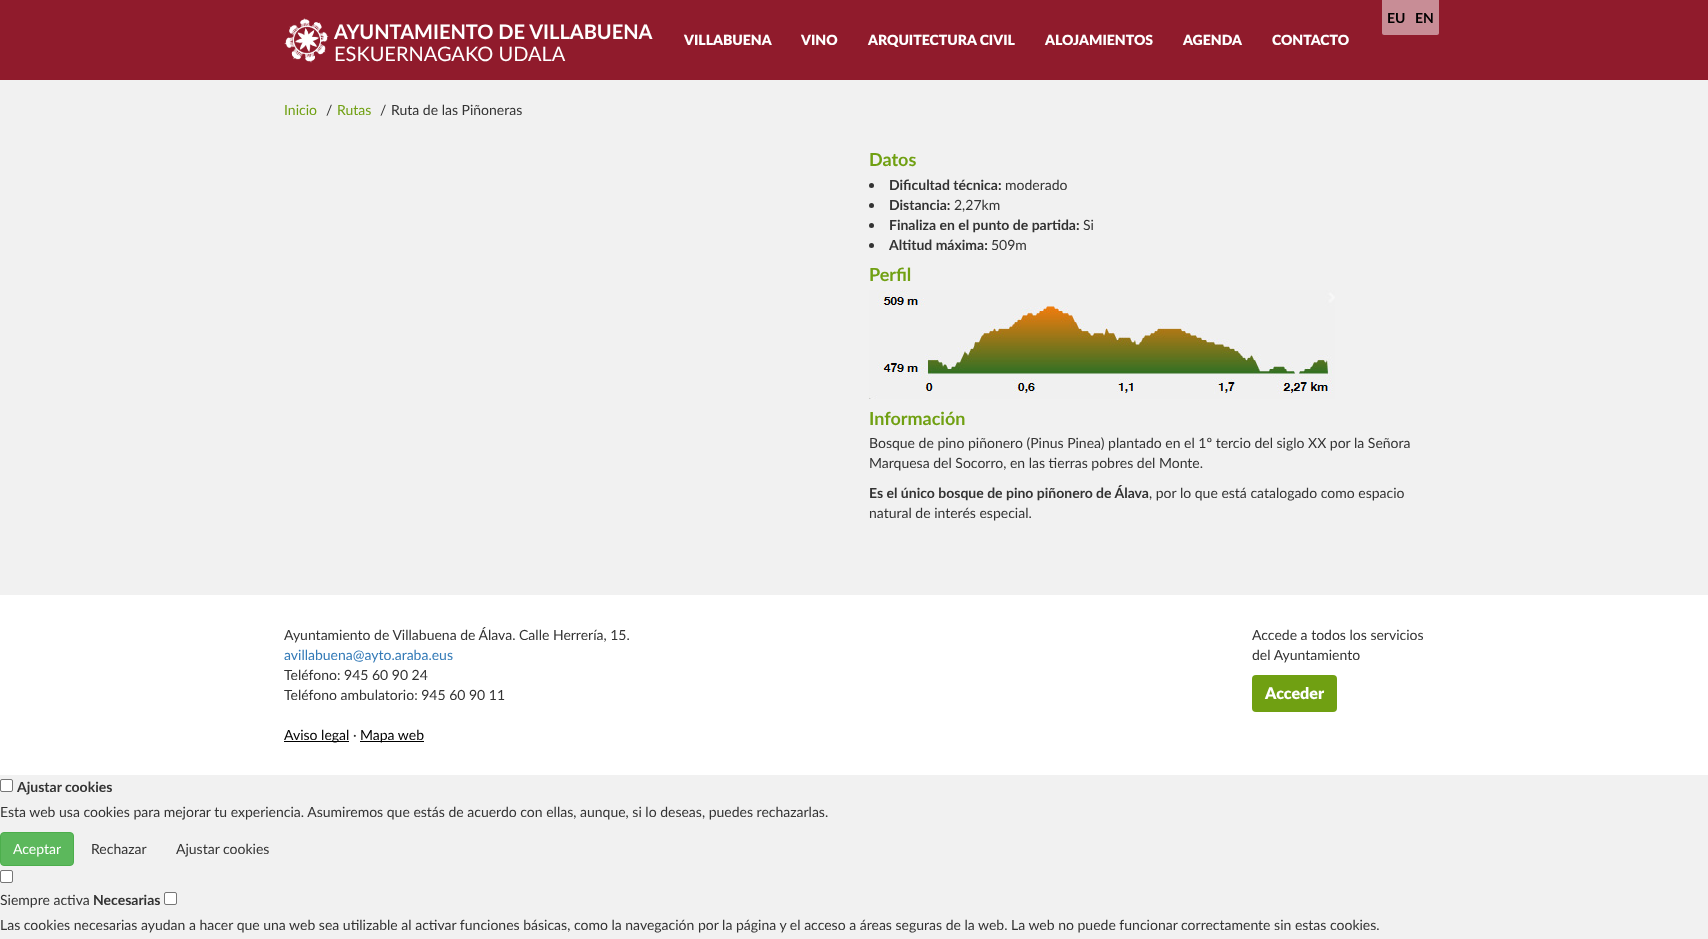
<svg xmlns="http://www.w3.org/2000/svg" width="1708" height="939" viewBox="0 0 1708 939">
  <rect width="100%" height="100%" fill="rgb(241,241,241)"/>
  <rect x="0" y="0" width="1708" height="80" fill="rgb(144,27,44)"/>
  <image x="284" y="18" width="45" height="45" href="pic1.png"/>
  <path d="M1382 0H1439V33C1439 34 1438 35 1437 35H1384C1383 35 1382 34 1382 33Z" fill="rgb(200,141,150)"/>
  <g font-family="Lato" font-size="14" font-weight="bold" fill="rgb(0,0,0)">
    <text x="1387" y="23">EU</text>
    <text x="1415" y="23">EN</text>
  </g>
  <image x="284" y="18" width="45" height="45" href="pic2.png"/>
  <text x="334" y="39" font-family="Lato" font-size="20" font-weight="bold" fill="rgb(255,255,255)">AYUNTAMIENTO DE VILLABUENA</text>
  <text x="334" y="61" font-family="Lato" font-size="20" fill="rgb(255,255,255)">ESKUERNAGAKO UDALA</text>
  <g font-family="Lato" font-size="14" font-weight="900" fill="rgb(255,255,255)">
    <text x="684" y="45">VILLABUENA</text>
    <text x="801" y="45">VINO</text>
    <text x="868" y="45">ARQUITECTURA CIVIL</text>
    <text x="1045" y="45">ALOJAMIENTOS</text>
    <text x="1183" y="45">AGENDA</text>
    <text x="1272" y="45">CONTACTO</text>
  </g>
  <text x="284" y="115" font-family="Lato" font-size="14" fill="rgb(112,160,18)">Inicio</text>
  <text x="326" y="115" font-family="Lato" font-size="14" fill="rgb(51,51,51)">/</text>
  <text x="337" y="115" font-family="Lato" font-size="14" fill="rgb(112,160,18)">Rutas</text>
  <g font-family="Lato" font-size="14" fill="rgb(51,51,51)">
    <text x="380" y="115">/</text>
    <text x="391" y="115">Ruta de las Piñoneras</text>
  </g>
  <text x="869" y="166" font-family="Lato" font-size="18" font-weight="bold" fill="rgb(112,160,18)">Datos</text>
  <circle cx="871.5" cy="185.5" r="2.5" fill="rgb(51,51,51)"/>
  <text x="889" y="190" font-family="Lato" font-size="14" font-weight="bold" fill="rgb(51,51,51)">Dificultad técnica:</text>
  <text x="1005" y="190" font-family="Lato" font-size="14" fill="rgb(51,51,51)">moderado</text>
  <circle cx="871.5" cy="205.5" r="2.5" fill="rgb(51,51,51)"/>
  <text x="889" y="210" font-family="Lato" font-size="14" font-weight="bold" fill="rgb(51,51,51)">Distancia:</text>
  <text x="954" y="210" font-family="Lato" font-size="14" fill="rgb(51,51,51)">2,27km</text>
  <circle cx="871.5" cy="225.5" r="2.5" fill="rgb(51,51,51)"/>
  <text x="889" y="230" font-family="Lato" font-size="14" font-weight="bold" fill="rgb(51,51,51)">Finaliza en el punto de partida:</text>
  <text x="1083" y="230" font-family="Lato" font-size="14" fill="rgb(51,51,51)">Si</text>
  <circle cx="871.5" cy="245.5" r="2.5" fill="rgb(51,51,51)"/>
  <text x="889" y="250" font-family="Lato" font-size="14" font-weight="bold" fill="rgb(51,51,51)">Altitud máxima:</text>
  <text x="991" y="250" font-family="Lato" font-size="14" fill="rgb(51,51,51)">509m</text>
  <text x="869" y="281" font-family="Lato" font-size="18" font-weight="bold" fill="rgb(112,160,18)">Perfil</text>
  <image x="869" y="290" width="466" height="109" href="pic3.png"/>
  <text x="869" y="425" font-family="Lato" font-size="18" font-weight="bold" fill="rgb(112,160,18)">Información</text>
  <g font-family="Lato" font-size="14" fill="rgb(51,51,51)">
    <text>
      <tspan x="869" y="448">Bosque de pino piñonero (Pinus Pinea) plantado en el 1º tercio del siglo XX por la Señora</tspan>
      <tspan x="869" y="468">Marquesa del Socorro, en las tierras pobres del Monte.</tspan>
    </text>
  </g>
  <text x="869" y="498" font-family="Lato" font-size="14" font-weight="bold" fill="rgb(51,51,51)">Es el único bosque de pino piñonero de Álava</text>
  <g font-family="Lato" font-size="14" fill="rgb(51,51,51)">
    <text x="1149" y="498">, por lo que está catalogado como espacio</text>
    <text x="869" y="518">natural de interés especial.</text>
  </g>
  <rect x="0" y="595" width="1708" height="180" fill="rgb(255,255,255)"/>
  <text x="284" y="640" font-family="Lato" font-size="14" fill="rgb(51,51,51)">Ayuntamiento de Villabuena de Álava. Calle Herrería, 15.</text>
  <text x="284" y="660" font-family="Lato" font-size="14" fill="rgb(51,122,183)">avillabuena@ayto.araba.eus</text>
  <g font-family="Lato" font-size="14" fill="rgb(51,51,51)">
    <text>
      <tspan x="284" y="680">Teléfono: 945 60 90 24</tspan>
      <tspan x="284" y="700">Teléfono ambulatorio: 945 60 90 11</tspan>
    </text>
    <text>
      <tspan x="1252" y="640">Accede a todos los servicios</tspan>
      <tspan x="1252" y="660">del Ayuntamiento</tspan>
    </text>
  </g>
  <rect x="1252" y="675" width="85" height="37" rx="4" fill="rgb(112,160,18)"/>
  <text x="1265" y="699" font-family="Lato" font-size="16" font-weight="900" fill="rgb(255,255,255)">Acceder</text>
  <rect x="284" y="741" width="65" height="1" fill="rgb(0,0,0)"/>
  <text x="284" y="740" font-family="Lato" font-size="14" fill="rgb(0,0,0)">Aviso legal</text>
  <text x="353" y="740" font-family="Lato" font-size="14" fill="rgb(51,51,51)">·</text>
  <rect x="360" y="741" width="64" height="1" fill="rgb(0,0,0)"/>
  <text x="360" y="740" font-family="Lato" font-size="14" fill="rgb(0,0,0)">Mapa web</text>
  <rect x="0.5" y="779.5" width="12" height="12" rx="1.5" fill="rgb(255,255,255)" stroke="rgb(118,118,118)"/>
  <text x="17" y="792" font-family="Lato" font-size="14" font-weight="bold" fill="rgb(51,51,51)">Ajustar cookies</text>
  <text x="0" y="817" font-family="Lato" font-size="14" fill="rgb(51,51,51)">Esta web usa cookies para mejorar tu experiencia. Asumiremos que estás de acuerdo con ellas, aunque, si lo deseas, puedes rechazarlas.</text>
  <rect x="0.5" y="832.5" width="73" height="33" rx="3.5" fill="rgb(92,184,92)" stroke="rgb(76,174,76)"/>
  <text x="13" y="854" font-family="Lato" font-size="14" fill="rgb(255,255,255)">Aceptar</text>
  <g font-family="Lato" font-size="14" fill="rgb(51,51,51)">
    <text x="91" y="854">Rechazar</text>
    <text x="176" y="854">Ajustar cookies</text>
  </g>
  <rect x="0.5" y="870.5" width="12" height="12" rx="1.5" fill="rgb(255,255,255)" stroke="rgb(118,118,118)"/>
  <text x="0" y="905" font-family="Lato" font-size="14" fill="rgb(51,51,51)">Siempre activa</text>
  <text x="93" y="905" font-family="Lato" font-size="14" font-weight="bold" fill="rgb(51,51,51)">Necesarias</text>
  <rect x="164.5" y="892.5" width="12" height="12" rx="1.5" fill="rgb(255,255,255)" stroke="rgb(118,118,118)"/>
  <text x="0" y="930" font-family="Lato" font-size="14" fill="rgb(51,51,51)">Las cookies necesarias ayudan a hacer que una web sea utilizable al activar funciones básicas, como la navegación por la página y el acceso a áreas seguras de la web. La web no puede funcionar correctamente sin estas cookies.</text>
</svg>
